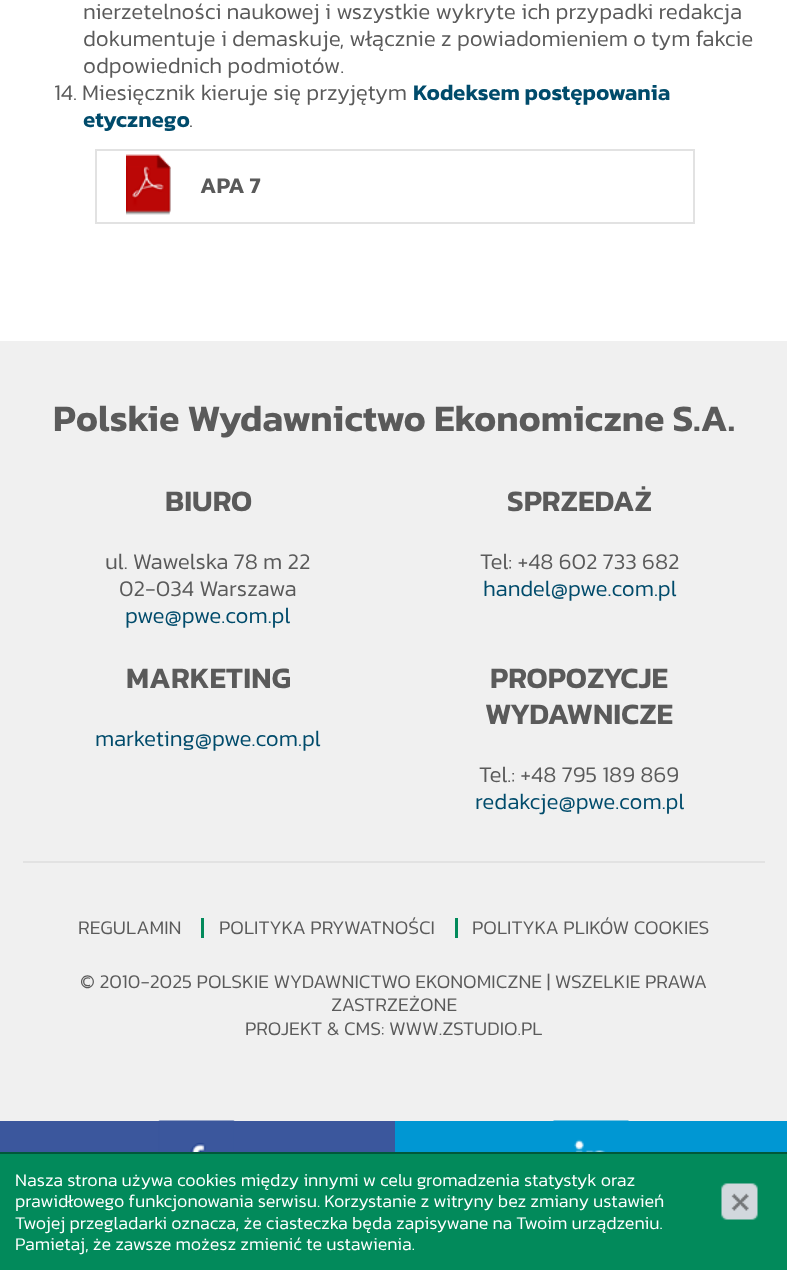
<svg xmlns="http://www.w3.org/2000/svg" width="787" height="1270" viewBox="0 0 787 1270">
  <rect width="100%" height="100%" fill="rgb(255,255,255)"/>
  <g font-family="Kanit" font-size="22.5" font-weight="300" fill="rgb(90,90,90)">
    <text>
      <tspan x="83" y="19">nierzetelności naukowej i wszystkie wykryte ich przypadki redakcja</tspan>
      <tspan x="83" y="46">dokumentuje i demaskuje, włącznie z powiadomieniem o tym fakcie</tspan>
      <tspan x="83" y="73">odpowiednich podmiotów.</tspan>
    </text>
    <text x="54" y="100">14. Miesięcznik kieruje się przyjętym</text>
  </g>
  <g font-family="Kanit" font-size="22.5" font-weight="600" fill="rgb(0,75,107)">
    <text x="413" y="100">Kodeksem postępowania</text>
    <text x="83" y="127">etycznego</text>
  </g>
  <text x="189" y="127" font-family="Kanit" font-size="22.5" font-weight="300" fill="rgb(90,90,90)">.</text>
  <image x="126" y="154" width="45" height="61" href="pic1.png"/>
  <rect x="96" y="150" width="598" height="73" fill="none" stroke="rgb(226,226,226)" stroke-width="2"/>
  <text x="200" y="193" font-family="Kanit" font-size="22.5" font-weight="600" fill="rgb(90,90,90)">APA 7</text>
  <rect x="0" y="341" width="787" height="780" fill="rgb(240,240,240)"/>
  <text x="53" y="431" font-family="Kanit" font-size="37.5" font-weight="600" fill="rgb(90,90,90)">Polskie Wydawnictwo Ekonomiczne S.A.</text>
  <text x="165" y="511" font-family="Kanit" font-size="30" font-weight="600" fill="rgb(90,90,90)">BIURO</text>
  <g font-family="Kanit" font-size="22.5" font-weight="300" fill="rgb(90,90,90)">
    <text x="105" y="569">ul. Wawelska 78 m 22</text>
    <text x="119" y="596">02-034 Warszawa</text>
  </g>
  <text x="125" y="623" font-family="Kanit" font-size="22.5" font-weight="300" fill="rgb(0,75,107)">pwe@pwe.com.pl</text>
  <text x="507" y="511" font-family="Kanit" font-size="30" font-weight="600" fill="rgb(90,90,90)">SPRZEDAŻ</text>
  <text x="480" y="569" font-family="Kanit" font-size="22.5" font-weight="300" fill="rgb(90,90,90)">Tel: +48 602 733 682</text>
  <text x="483" y="596" font-family="Kanit" font-size="22.5" font-weight="300" fill="rgb(0,75,107)">handel@pwe.com.pl</text>
  <text x="126" y="688" font-family="Kanit" font-size="30" font-weight="600" fill="rgb(90,90,90)">MARKETING</text>
  <text x="95" y="746" font-family="Kanit" font-size="22.5" font-weight="300" fill="rgb(0,75,107)">marketing@pwe.com.pl</text>
  <g font-family="Kanit" font-size="30" font-weight="600" fill="rgb(90,90,90)">
    <text x="490" y="688">PROPOZYCJE</text>
    <text x="485" y="724">WYDAWNICZE</text>
  </g>
  <text x="479" y="782" font-family="Kanit" font-size="22.5" font-weight="300" fill="rgb(90,90,90)">Tel.: +48 795 189 869</text>
  <text x="475" y="809" font-family="Kanit" font-size="22.5" font-weight="300" fill="rgb(0,75,107)">redakcje@pwe.com.pl</text>
  <rect x="23" y="861" width="742" height="2" fill="rgb(226,226,226)"/>
  <text x="78" y="934" font-family="Kanit" font-size="19.5" font-weight="300" fill="rgb(90,90,90)">REGULAMIN</text>
  <rect x="201" y="918" width="3" height="20" fill="rgb(2,138,91)"/>
  <text x="219" y="934" font-family="Kanit" font-size="19.5" font-weight="300" fill="rgb(90,90,90)">POLITYKA PRYWATNOŚCI</text>
  <rect x="455" y="918" width="3" height="20" fill="rgb(2,138,91)"/>
  <g font-family="Kanit" font-size="19.5" font-weight="300" fill="rgb(90,90,90)">
    <text x="472" y="934">POLITYKA PLIKÓW COOKIES</text>
    <text x="80" y="988">© 2010-2025 POLSKIE WYDAWNICTWO EKONOMICZNE | WSZELKIE PRAWA</text>
    <text x="331" y="1011">ZASTRZEŻONE</text>
    <text x="245" y="1035">PROJEKT &amp; CMS: WWW.ZSTUDIO.PL</text>
  </g>
  <rect x="0" y="1121" width="395" height="31" fill="rgb(59,87,157)"/>
  <image x="158" y="1120" width="77" height="32" href="pic2.png"/>
  <rect x="395" y="1121" width="392" height="31" fill="rgb(0,151,211)"/>
  <image x="553" y="1120" width="76" height="32" href="pic3.png"/>
  <rect x="0" y="1154" width="787" height="116" fill="rgb(2,138,91)"/>
  <rect x="0" y="1152" width="787" height="2" fill="rgb(1,88,58)"/>
  <text x="15" y="1186" font-family="Kanit" font-size="18" font-weight="300" fill="rgb(255,255,255)">Nasza strona używa cookies między innymi w celu gromadzenia statystyk oraz</text>
  <image x="721" y="1183" width="37" height="37" href="pic4.png"/>
  <g font-family="Kanit" font-size="18" font-weight="300" fill="rgb(255,255,255)">
    <text>
      <tspan x="15" y="1207">prawidłowego funkcjonowania serwisu. Korzystanie z witryny bez zmiany ustawień</tspan>
      <tspan x="15" y="1229">Twojej przegladarki oznacza, że ciasteczka będa zapisywane na Twoim urządzeniu.</tspan>
      <tspan x="15" y="1250">Pamietaj, że zawsze możesz zmienić te ustawienia.</tspan>
    </text>
  </g>
</svg>
